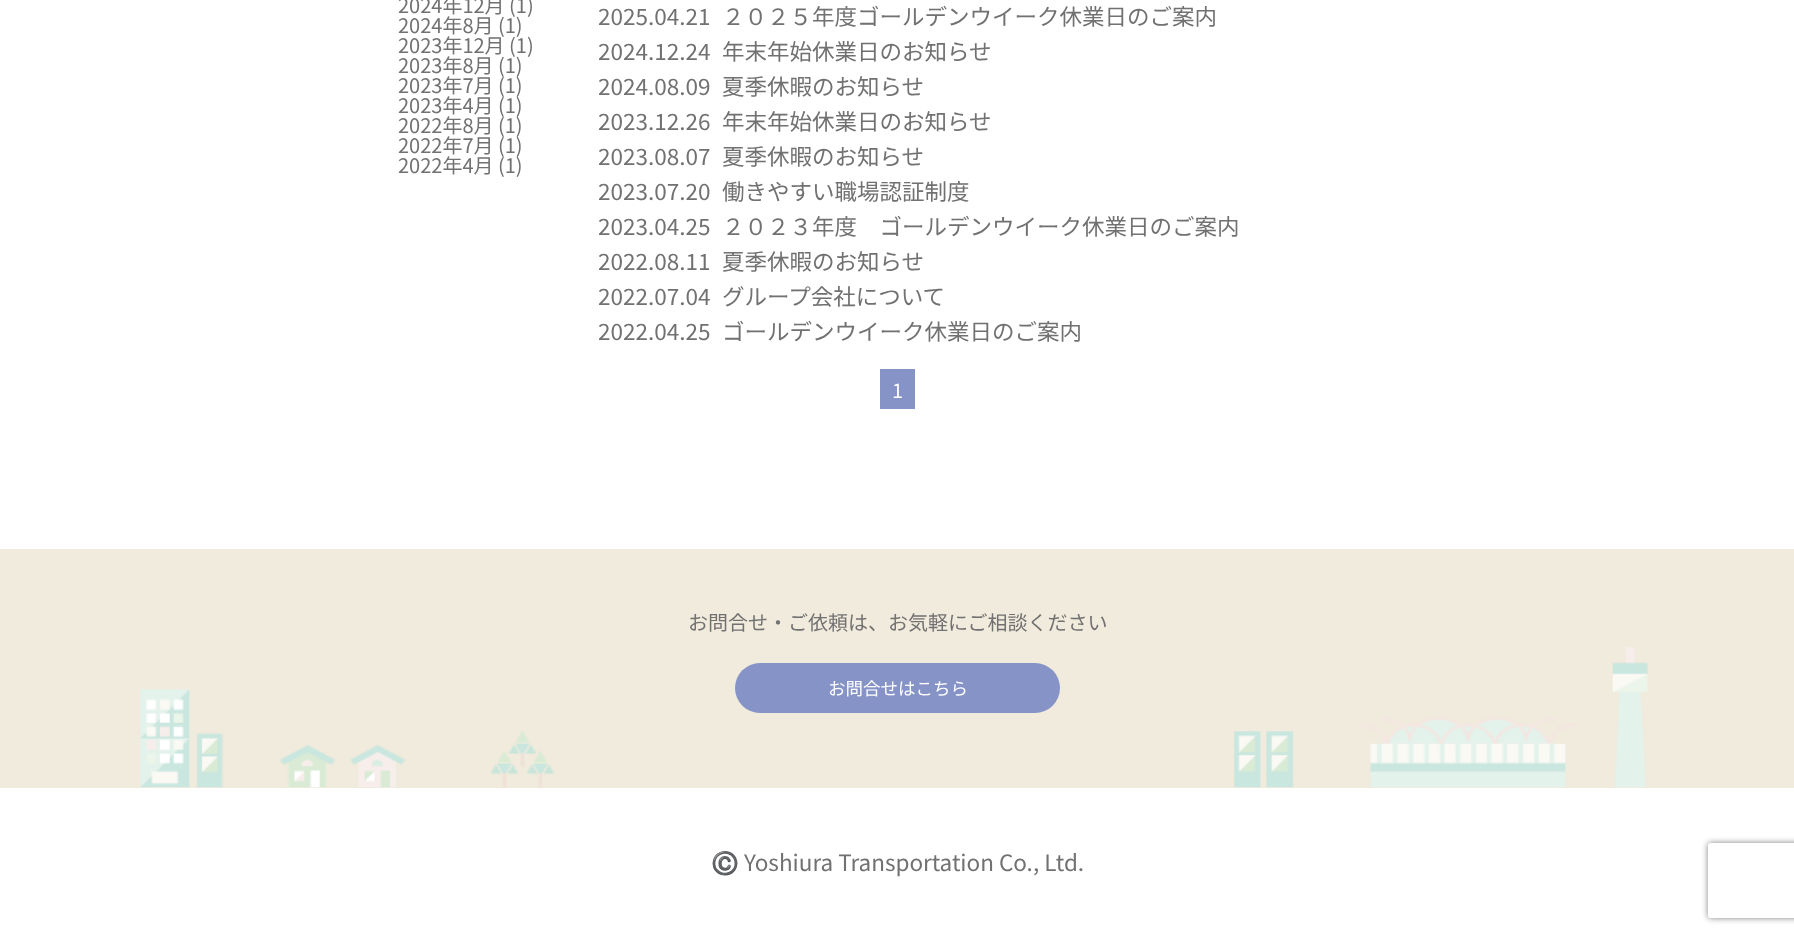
<svg xmlns="http://www.w3.org/2000/svg" width="1794" height="934" viewBox="0 0 1794 934">
  <defs>
    <clipPath id="clip1"><path d="M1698 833H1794V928H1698ZM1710.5 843H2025.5C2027 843 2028 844 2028 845.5V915.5C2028 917 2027 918 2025.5 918H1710.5C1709 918 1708 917 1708 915.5V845.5C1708 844 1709 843 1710.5 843Z" clip-rule="evenodd"/></clipPath>
  </defs>
  <rect width="100%" height="100%" fill="rgb(255,255,255)"/>
  <g font-family="Noto Sans JP" font-size="20" fill="rgb(114,113,113)">
    <text>
      <tspan x="398" y="13">2024年12月 (1)</tspan>
      <tspan x="398" y="33">2024年8月 (1)</tspan>
      <tspan x="398" y="53">2023年12月 (1)</tspan>
      <tspan x="398" y="73">2023年8月 (1)</tspan>
      <tspan x="398" y="93">2023年7月 (1)</tspan>
      <tspan x="398" y="113">2023年4月 (1)</tspan>
      <tspan x="398" y="133">2022年8月 (1)</tspan>
      <tspan x="398" y="153">2022年7月 (1)</tspan>
      <tspan x="398" y="173">2022年4月 (1)</tspan>
    </text>
  </g>
  <g font-family="Noto Sans JP" font-size="22.5" fill="rgb(114,113,113)">
    <text x="598" y="25">2025.04.21</text>
    <text x="722" y="25">２０２５年度ゴールデンウイーク休業日のご案内</text>
    <text x="598" y="60">2024.12.24</text>
    <text x="722" y="60">年末年始休業日のお知らせ</text>
    <text x="598" y="95">2024.08.09</text>
    <text x="722" y="95">夏季休暇のお知らせ</text>
    <text x="598" y="130">2023.12.26</text>
    <text x="722" y="130">年末年始休業日のお知らせ</text>
    <text x="598" y="165">2023.08.07</text>
    <text x="722" y="165">夏季休暇のお知らせ</text>
    <text x="598" y="200">2023.07.20</text>
    <text x="722" y="200">働きやすい職場認証制度</text>
    <text x="598" y="235">2023.04.25</text>
    <text x="722" y="235">２０２３年度　ゴールデンウイーク休業日のご案内</text>
    <text x="598" y="270">2022.08.11</text>
    <text x="722" y="270">夏季休暇のお知らせ</text>
    <text x="598" y="305">2022.07.04</text>
    <text x="722" y="305">グループ会社について</text>
    <text x="598" y="340">2022.04.25</text>
    <text x="722" y="340">ゴールデンウイーク休業日のご案内</text>
  </g>
  <rect x="880" y="369" width="35" height="40" fill="rgb(133,147,199)"/>
  <text x="892" y="398" font-family="Noto Sans JP" font-size="20" fill="rgb(255,255,255)">1</text>
  <rect x="0" y="549" width="1794" height="239" fill="rgb(240,235,220)"/>
  <image x="140" y="647" width="1508" height="141" href="pic1.png"/>
  <text x="688" y="630" font-family="Noto Sans JP" font-size="20" fill="rgb(114,113,113)">お問合せ・ご依頼は、お気軽にご相談ください</text>
  <rect x="735" y="663" width="325" height="50" rx="25" fill="rgb(133,147,199)"/>
  <text x="828" y="695" font-family="Noto Sans JP" font-size="17.5" fill="rgb(255,255,255)">お問合せはこちら</text>
  <text x="711" y="871" font-family="Noto Color Emoji" font-size="22.5" fill="rgb(114,113,113)">©️</text>
  <text x="744" y="871" font-family="Noto Sans JP" font-size="22.5" fill="rgb(114,113,113)">Yoshiura Transportation Co., Ltd.</text>
  <g clip-path="url(#clip1)">
    <rect x="1708" y="843" width="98" height="75" rx="2.5" fill="rgb(128,128,128)" filter="blur(3px)"/>
  </g>
</svg>
